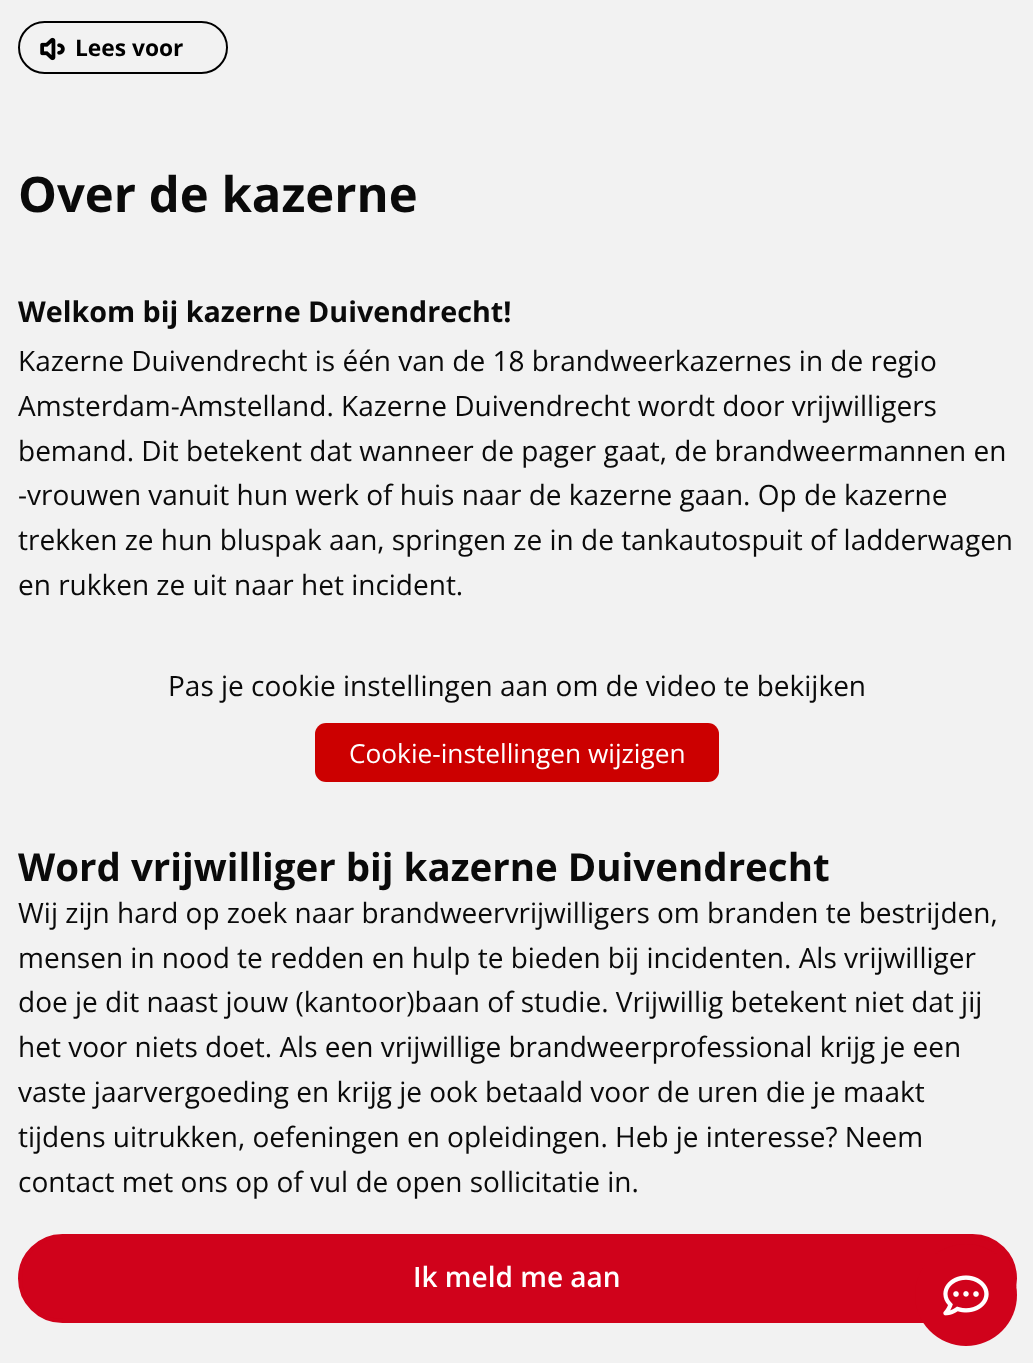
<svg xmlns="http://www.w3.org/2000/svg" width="1033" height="1363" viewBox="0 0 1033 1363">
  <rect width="100%" height="100%" fill="rgb(242,242,242)"/>
  <rect x="19" y="22" width="208" height="51" rx="25.5" fill="none" stroke="rgb(0,0,0)" stroke-width="2"/>
  <image x="40" y="37" width="25" height="24" href="pic1.png"/>
  <text x="75" y="56" font-family="Open Sans" font-size="22.75" font-weight="bold" fill="rgb(0,0,0)">Lees voor</text>
  <text x="18" y="212" font-family="Open Sans" font-size="49" font-weight="bold" fill="rgb(10,10,10)">Over de kazerne</text>
  <text x="18" y="322" font-family="Open Sans" font-size="28.7" font-weight="bold" fill="rgb(10,10,10)">Welkom bij kazerne Duivendrecht!</text>
  <g font-family="Open Sans" font-size="28" fill="rgb(10,10,10)">
    <text>
      <tspan x="18" y="371">Kazerne Duivendrecht is één van de 18 brandweerkazernes in de regio</tspan>
      <tspan x="18" y="416">Amsterdam-Amstelland. Kazerne Duivendrecht wordt door vrijwilligers</tspan>
      <tspan x="18" y="461">bemand. Dit betekent dat wanneer de pager gaat, de brandweermannen en</tspan>
      <tspan x="18" y="505">-vrouwen vanuit hun werk of huis naar de kazerne gaan. Op de kazerne</tspan>
      <tspan x="18" y="550">trekken ze hun bluspak aan, springen ze in de tankautospuit of ladderwagen</tspan>
      <tspan x="18" y="595">en rukken ze uit naar het incident.</tspan>
    </text>
    <text x="168" y="696">Pas je cookie instellingen aan om de video te bekijken</text>
  </g>
  <rect x="315" y="723" width="404" height="59" rx="11" fill="rgb(204,0,0)"/>
  <text x="349" y="763" font-family="Open Sans" font-size="26.25" fill="rgb(255,255,255)">Cookie-instellingen wijzigen</text>
  <text x="18" y="881" font-family="Open Sans" font-size="38.5" font-weight="bold" fill="rgb(10,10,10)">Word vrijwilliger bij kazerne Duivendrecht</text>
  <g font-family="Open Sans" font-size="28" fill="rgb(10,10,10)">
    <text>
      <tspan x="18" y="923">Wij zijn hard op zoek naar brandweervrijwilligers om branden te bestrijden,</tspan>
      <tspan x="18" y="968">mensen in nood te redden en hulp te bieden bij incidenten. Als vrijwilliger</tspan>
      <tspan x="18" y="1012">doe je dit naast jouw (kantoor)baan of studie. Vrijwillig betekent niet dat jij</tspan>
      <tspan x="18" y="1057">het voor niets doet. Als een vrijwillige brandweerprofessional krijg je een</tspan>
      <tspan x="18" y="1102">vaste jaarvergoeding en krijg je ook betaald voor de uren die je maakt</tspan>
      <tspan x="18" y="1147">tijdens uitrukken, oefeningen en opleidingen. Heb je interesse? Neem</tspan>
      <tspan x="18" y="1192">contact met ons op of vul de open sollicitatie in.</tspan>
    </text>
  </g>
  <rect x="20" y="1236" width="995" height="85" rx="42.5" fill="rgb(208,2,27)" stroke="rgb(208,2,27)" stroke-width="4"/>
  <text x="413" y="1287" font-family="Open Sans" font-size="28" font-weight="600" fill="rgb(255,255,255)">Ik meld me aan</text>
  <circle cx="966" cy="1295" r="51" fill="rgb(208,2,27)"/>
  <image x="943" y="1275" width="46" height="41" href="pic2.png"/>
</svg>
